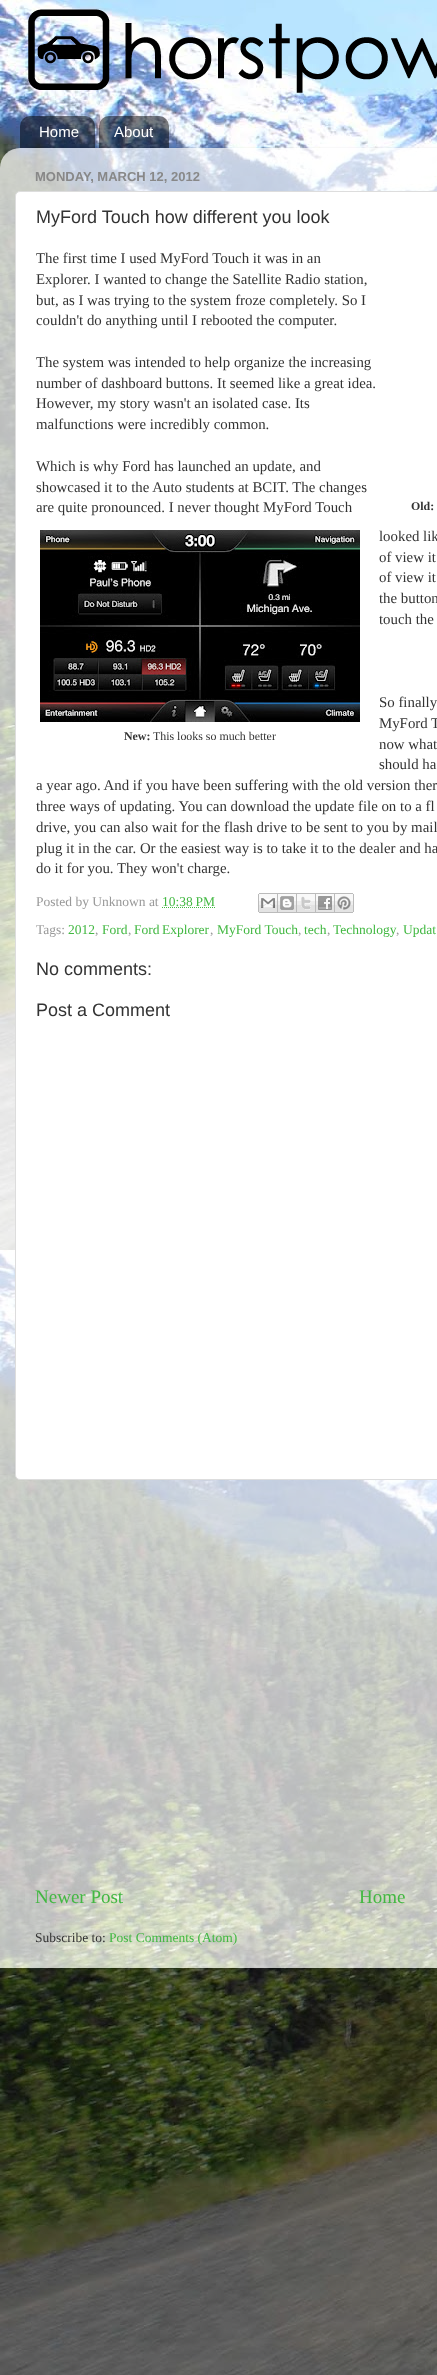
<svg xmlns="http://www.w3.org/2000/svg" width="437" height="2375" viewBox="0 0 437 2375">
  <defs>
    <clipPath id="clip1"><path d="M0 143H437V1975H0ZM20 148H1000C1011 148 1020 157 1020 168V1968H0V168C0 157 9 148 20 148Z" clip-rule="evenodd"/></clipPath>
  </defs>
  <rect width="100%" height="100%" fill="rgb(255,255,255)"/>
  <image x="0" y="0" width="437" height="2375" href="pic1.png"/>
  <image x="28" y="9" width="409" height="84" href="pic2.png"/>
  <image x="20" y="116" width="75" height="32" href="pic3.png"/>
  <text x="39" y="137" font-family="Liberation Sans" font-size="15" fill="rgb(255,255,255)">Home</text>
  <image x="99" y="116" width="70" height="32" href="pic4.png"/>
  <text x="114" y="137" font-family="Liberation Sans" font-size="15" fill="rgb(255,255,255)">About</text>
  <g clip-path="url(#clip1)">
    <rect x="0" y="149" width="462" height="1820" rx="20" fill="rgba(0,0,0,0.15)" filter="blur(1.5px)"/>
  </g>
  <image x="0" y="148" width="437" height="1820" href="pic5.png"/>
  <text x="35" y="181" font-family="Liberation Sans" font-size="13" font-weight="bold" fill="rgb(136,136,136)">MONDAY, MARCH 12, 2012</text>
  <rect x="15.5" y="191.5" width="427" height="1288" rx="4.5" fill="rgb(255,255,255)" stroke="rgb(221,221,221)"/>
  <text x="36" y="223" font-family="Liberation Sans" font-size="18" fill="rgb(51,51,51)">MyFord Touch how different you look</text>
  <g font-family="Liberation Serif" font-size="14.85" fill="rgb(51,51,51)">
    <text>
      <tspan x="36" y="263">The first time I used MyFord Touch it was in an</tspan>
      <tspan x="36" y="284">Explorer. I wanted to change the Satellite Radio station,</tspan>
      <tspan x="36" y="305">but, as I was trying to the system froze completely. So I</tspan>
      <tspan x="36" y="325">couldn't do anything until I rebooted the computer.</tspan>
    </text>
    <text>
      <tspan x="36" y="367">The system was intended to help organize the increasing</tspan>
      <tspan x="36" y="388">number of dashboard buttons. It seemed like a great idea.</tspan>
      <tspan x="36" y="408">However, my story wasn't an isolated case. Its</tspan>
      <tspan x="36" y="429">malfunctions were incredibly common.</tspan>
    </text>
    <text>
      <tspan x="36" y="471">Which is why Ford has launched an update, and</tspan>
      <tspan x="36" y="492">showcased it to the Auto students at BCIT. The changes</tspan>
      <tspan x="36" y="512">are quite pronounced. I never thought MyFord Touch</tspan>
    </text>
  </g>
  <text x="411" y="510" font-family="Liberation Serif" font-size="11.9" font-weight="bold" fill="rgb(51,51,51)">Old:</text>
  <g font-family="Liberation Serif" font-size="14.85" fill="rgb(51,51,51)">
    <text>
      <tspan x="379" y="541">looked lik</tspan>
      <tspan x="379" y="562">of view it</tspan>
      <tspan x="379" y="582">of view it</tspan>
      <tspan x="379" y="603">the button</tspan>
      <tspan x="379" y="624">touch the</tspan>
    </text>
    <text>
      <tspan x="379" y="707">So finally</tspan>
      <tspan x="379" y="728">MyFord T</tspan>
    </text>
  </g>
  <image x="40" y="530" width="320" height="192" href="pic6.png"/>
  <text x="124" y="740" font-family="Liberation Serif" font-size="11.9" font-weight="bold" fill="rgb(51,51,51)">New:</text>
  <text x="153" y="740" font-family="Liberation Serif" font-size="11.9" fill="rgb(51,51,51)">This looks so much better</text>
  <g font-family="Liberation Serif" font-size="14.85" fill="rgb(51,51,51)">
    <text>
      <tspan x="379" y="749">now what</tspan>
      <tspan x="379" y="769">should ha</tspan>
    </text>
    <text>
      <tspan x="36" y="790">a year ago. And if you have been suffering with the old version ther</tspan>
      <tspan x="36" y="811">three ways of updating. You can download the update file on to a fl</tspan>
      <tspan x="36" y="832">drive, you can also wait for the flash drive to be sent to you by mail</tspan>
      <tspan x="36" y="853">plug it in the car. Or the easiest way is to take it to the dealer and ha</tspan>
      <tspan x="36" y="873">do it for you. They won't charge.</tspan>
    </text>
  </g>
  <text x="36" y="906" font-family="Liberation Serif" font-size="13.5" fill="rgb(153,153,153)">Posted by Unknown at</text>
  <text x="162" y="906" font-family="Liberation Serif" font-size="13.5" fill="rgb(66,184,66)">10:38 PM</text>
  <path d="M162 907.5H215" fill="none" stroke="rgb(66,184,66)" stroke-dasharray="1 1"/>
  <image x="258" y="893" width="20" height="20" href="pic7.png"/>
  <image x="278" y="893" width="19" height="20" href="pic8.png"/>
  <image x="297" y="893" width="19" height="20" href="pic9.png"/>
  <image x="316" y="893" width="19" height="20" href="pic10.png"/>
  <image x="335" y="893" width="19" height="20" href="pic11.png"/>
  <text x="36" y="934" font-family="Liberation Serif" font-size="13.5" fill="rgb(153,153,153)">Tags:</text>
  <text x="68" y="934" font-family="Liberation Serif" font-size="13.5" fill="rgb(66,184,66)">2012</text>
  <text x="95" y="934" font-family="Liberation Serif" font-size="13.5" fill="rgb(153,153,153)">,</text>
  <text x="102" y="934" font-family="Liberation Serif" font-size="13.5" fill="rgb(66,184,66)">Ford</text>
  <text x="128" y="934" font-family="Liberation Serif" font-size="13.5" fill="rgb(153,153,153)">,</text>
  <text x="134" y="934" word-spacing="-1" font-family="Liberation Serif" font-size="13.5" fill="rgb(66,184,66)">Ford Explorer</text>
  <text x="210" y="934" font-family="Liberation Serif" font-size="13.5" fill="rgb(153,153,153)">,</text>
  <text x="217" y="934" font-family="Liberation Serif" font-size="13.5" fill="rgb(66,184,66)">MyFord Touch</text>
  <text x="298" y="934" font-family="Liberation Serif" font-size="13.5" fill="rgb(153,153,153)">,</text>
  <text x="304" y="934" font-family="Liberation Serif" font-size="13.5" fill="rgb(66,184,66)">tech</text>
  <text x="327" y="934" font-family="Liberation Serif" font-size="13.5" fill="rgb(153,153,153)">,</text>
  <text x="333" y="934" font-family="Liberation Serif" font-size="13.5" fill="rgb(66,184,66)">Technology</text>
  <text x="396" y="934" font-family="Liberation Serif" font-size="13.5" fill="rgb(153,153,153)">,</text>
  <text x="403" y="934" font-family="Liberation Serif" font-size="13.5" fill="rgb(66,184,66)">Updat</text>
  <g font-family="Liberation Sans" font-size="18" fill="rgb(51,51,51)">
    <text x="36" y="975">No comments:</text>
    <text x="36" y="1016">Post a Comment</text>
  </g>
  <g font-family="Liberation Serif" font-size="19" fill="rgb(66,184,66)">
    <text x="35" y="1903">Newer Post</text>
    <text x="359" y="1903">Home</text>
  </g>
  <text x="35" y="1942" font-family="Liberation Serif" font-size="13.5" fill="rgb(51,51,51)">Subscribe to:</text>
  <text x="109" y="1942" font-family="Liberation Serif" font-size="13.5" fill="rgb(66,184,66)">Post Comments (Atom)</text>
  <rect x="0" y="1968" width="437" height="407" fill="rgba(0,0,0,0.5)"/>
</svg>
